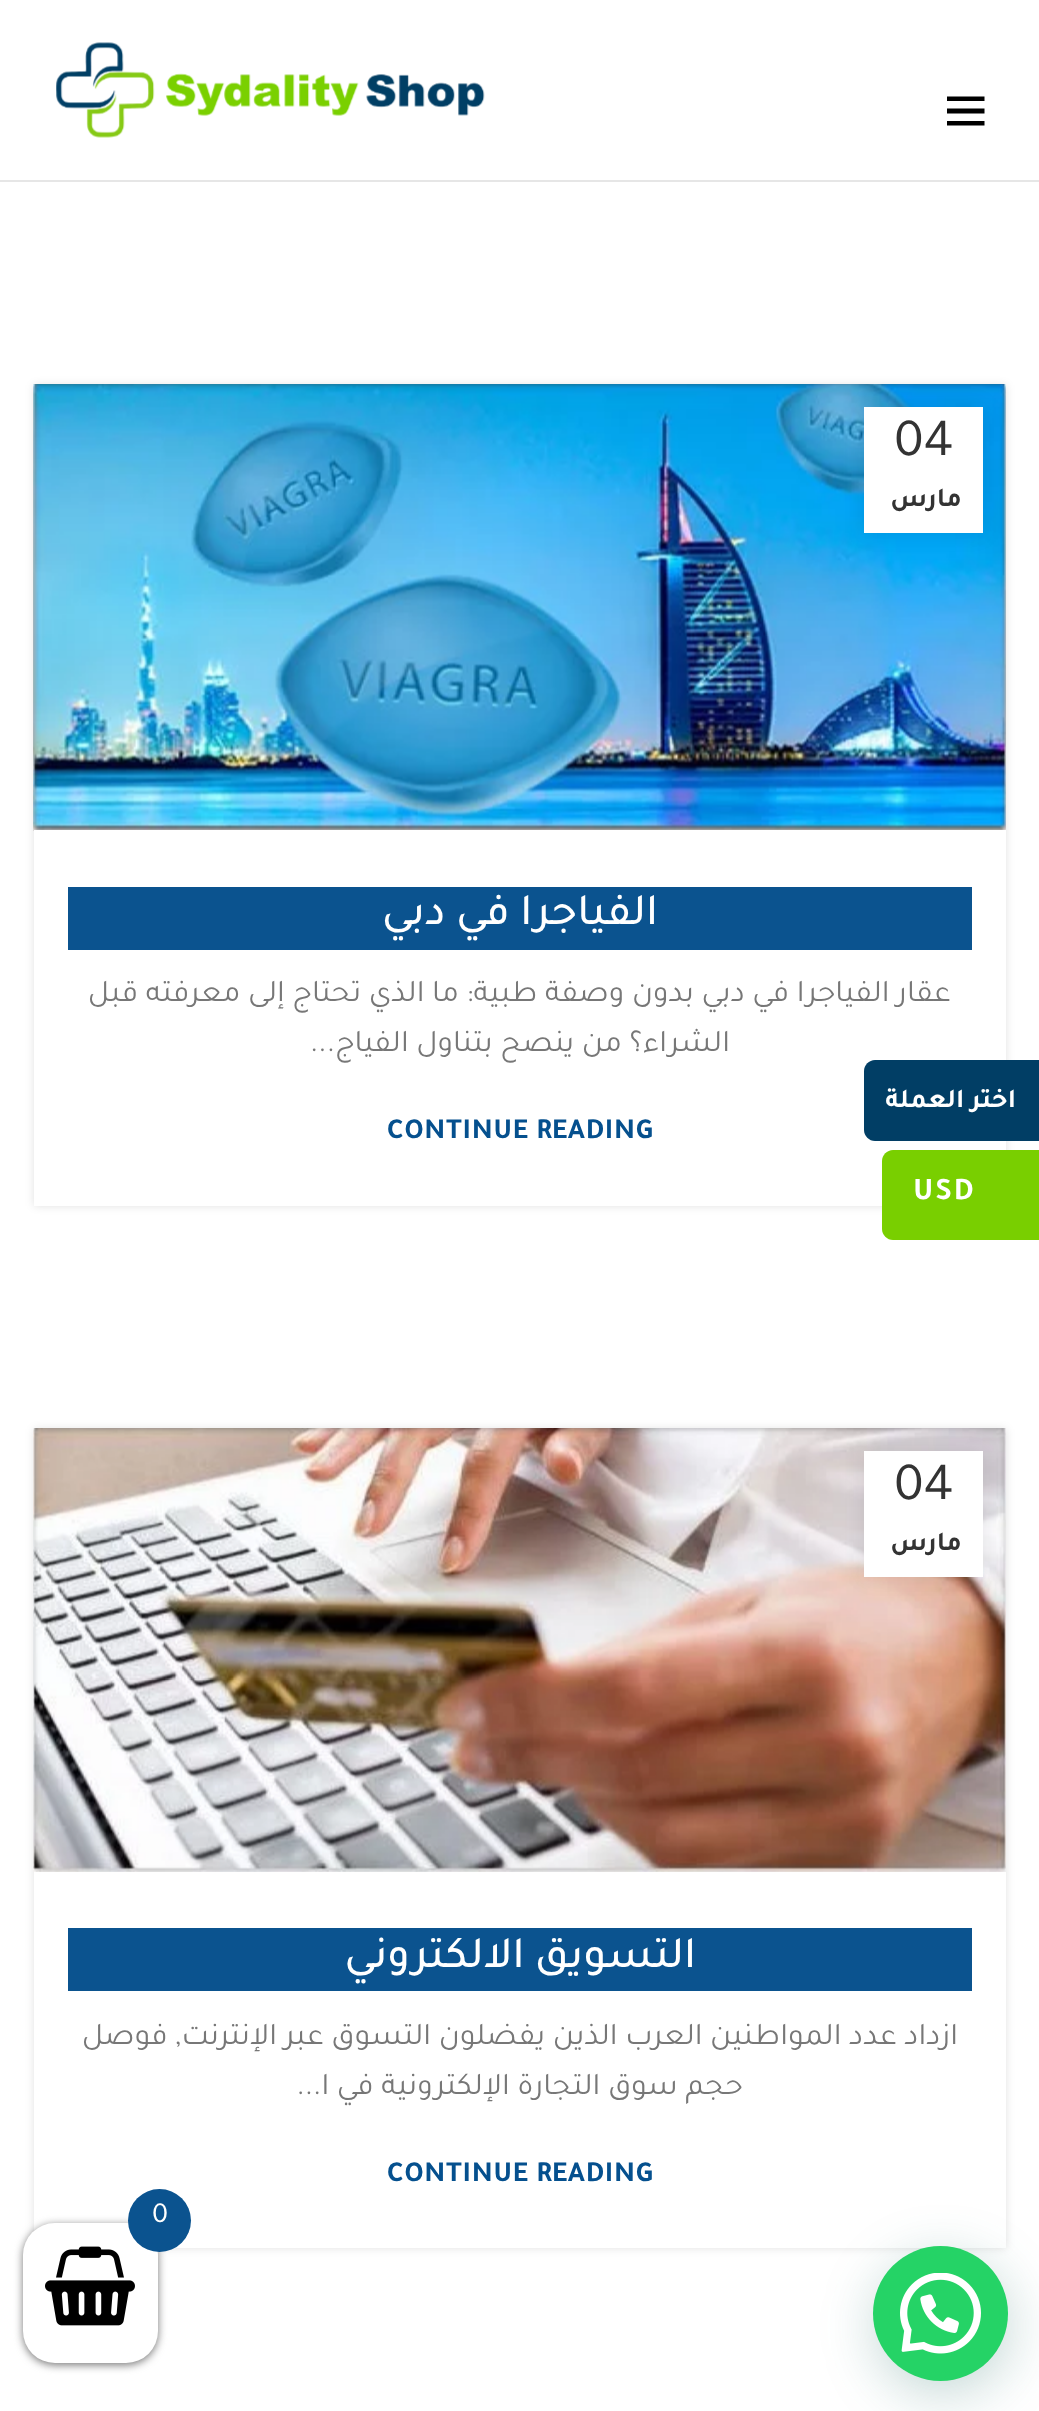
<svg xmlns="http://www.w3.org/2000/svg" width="1039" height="2411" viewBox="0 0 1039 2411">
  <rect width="100%" height="100%" fill="rgb(255,255,255)"/>
  <rect x="0" y="180" width="1039" height="2" fill="rgb(230,230,230)"/>
  <path d="M947 96.5H984.5V101H947ZM947 108.5H984.5V113.5H947ZM947 121H984.5V125.5H947Z" fill="rgb(0,0,0)"/>
  <image x="56" y="42" width="429" height="96" href="pic1.png"/>
  <rect x="34" y="385" width="972" height="821" fill="rgba(0,0,0,0.12)" filter="blur(4.5px)"/>
  <image x="33" y="384" width="973" height="447" href="pic2.png"/>
  <rect x="864" y="407" width="119" height="126" fill="rgba(0,0,0,0.1)" filter="blur(10px)"/>
  <rect x="864" y="407" width="119" height="126" fill="rgb(255,255,255)"/>
  <text x="894" y="455" font-family="Tajawal" font-size="54" fill="rgb(51,51,51)">04</text>
  <text x="962" y="506" font-family="Tajawal" font-size="27" font-weight="bold" letter-spacing="0.7" direction="rtl" fill="rgb(51,51,51)">مارس</text>
  <rect x="34" y="830" width="972" height="376" fill="rgb(255,255,255)"/>
  <rect x="68" y="887" width="904" height="63" fill="rgb(11,83,143)"/>
  <text x="658" y="924" font-family="Tajawal" font-size="45" font-weight="500" direction="rtl" fill="rgb(255,255,255)">الفياجرا في دبي</text>
  <g font-family="Tajawal" font-size="31.5" direction="rtl" fill="rgb(119,119,119)">
    <text x="951" y="1001">عقار الفياجرا في دبي بدون وصفة طبية: ما الذي تحتاج إلى معرفته قبل</text>
    <text x="730" y="1051">الشراء؟ من ينصح بتناول الفياج...</text>
  </g>
  <text x="387" y="1138" font-family="Tajawal" font-size="29.25" font-weight="bold" letter-spacing="0.7" fill="rgb(5,80,142)">CONTINUE READING</text>
  <rect x="34" y="1429" width="972" height="819" fill="rgba(0,0,0,0.12)" filter="blur(4.5px)"/>
  <image x="33" y="1428" width="973" height="444" href="pic3.png"/>
  <rect x="864" y="1451" width="119" height="126" fill="rgba(0,0,0,0.1)" filter="blur(10px)"/>
  <rect x="864" y="1451" width="119" height="126" fill="rgb(255,255,255)"/>
  <text x="894" y="1499" font-family="Tajawal" font-size="54" fill="rgb(51,51,51)">04</text>
  <text x="962" y="1550" font-family="Tajawal" font-size="27" font-weight="bold" letter-spacing="0.7" direction="rtl" fill="rgb(51,51,51)">مارس</text>
  <rect x="34" y="1872" width="972" height="376" fill="rgb(255,255,255)"/>
  <rect x="68" y="1928" width="904" height="63" fill="rgb(11,83,143)"/>
  <text x="696" y="1967" font-family="Tajawal" font-size="45" font-weight="500" direction="rtl" fill="rgb(255,255,255)">التسويق الالكتروني</text>
  <g font-family="Tajawal" font-size="31.5" direction="rtl" fill="rgb(119,119,119)">
    <text x="958" y="2044">ازداد عدد المواطنين العرب الذين يفضلون التسوق عبر الإنترنت, فوصل</text>
    <text x="743" y="2094">حجم سوق التجارة الإلكترونية في ا...</text>
  </g>
  <text x="387" y="2181" font-family="Tajawal" font-size="29.25" font-weight="bold" letter-spacing="0.7" fill="rgb(5,80,142)">CONTINUE READING</text>
  <path d="M875 1060H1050V1141H875C869 1141 864 1136 864 1130V1071C864 1065 869 1060 875 1060Z" fill="rgb(1,62,101)"/>
  <text x="1016" y="1107" font-family="Tajawal" font-size="27" font-weight="bold" direction="rtl" fill="rgb(255,255,255)">اختر العملة</text>
  <path d="M893 1150H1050V1240H893C887 1240 882 1235 882 1229V1161C882 1155 887 1150 893 1150Z" fill="rgb(121,207,0)"/>
  <text x="913" y="1199" font-family="Tajawal" font-size="31.5" font-weight="bold" letter-spacing="2" fill="rgb(255,255,255)">USD</text>
  <rect x="875" y="2259" width="135" height="135" rx="67.5" fill="rgba(7,94,84,0.24)" filter="blur(27px)"/>
  <circle cx="940.5" cy="2313.5" r="67.5" fill="rgb(37,211,102)"/>
  <image x="900" y="2273" width="81" height="81" href="pic4.png"/>
  <rect x="23" y="2225" width="135" height="140" rx="32" fill="rgb(119,119,119)" filter="blur(4.5px)"/>
  <rect x="23" y="2223" width="135" height="140" rx="32" fill="rgb(255,255,255)"/>
  <image x="45" y="2246" width="90" height="80" href="pic5.png"/>
  <circle cx="159.5" cy="2220.5" r="31.5" fill="rgb(11,83,143)"/>
  <text x="152" y="2222" font-family="Tajawal" font-size="29.25" fill="rgb(255,255,255)">0</text>
</svg>
